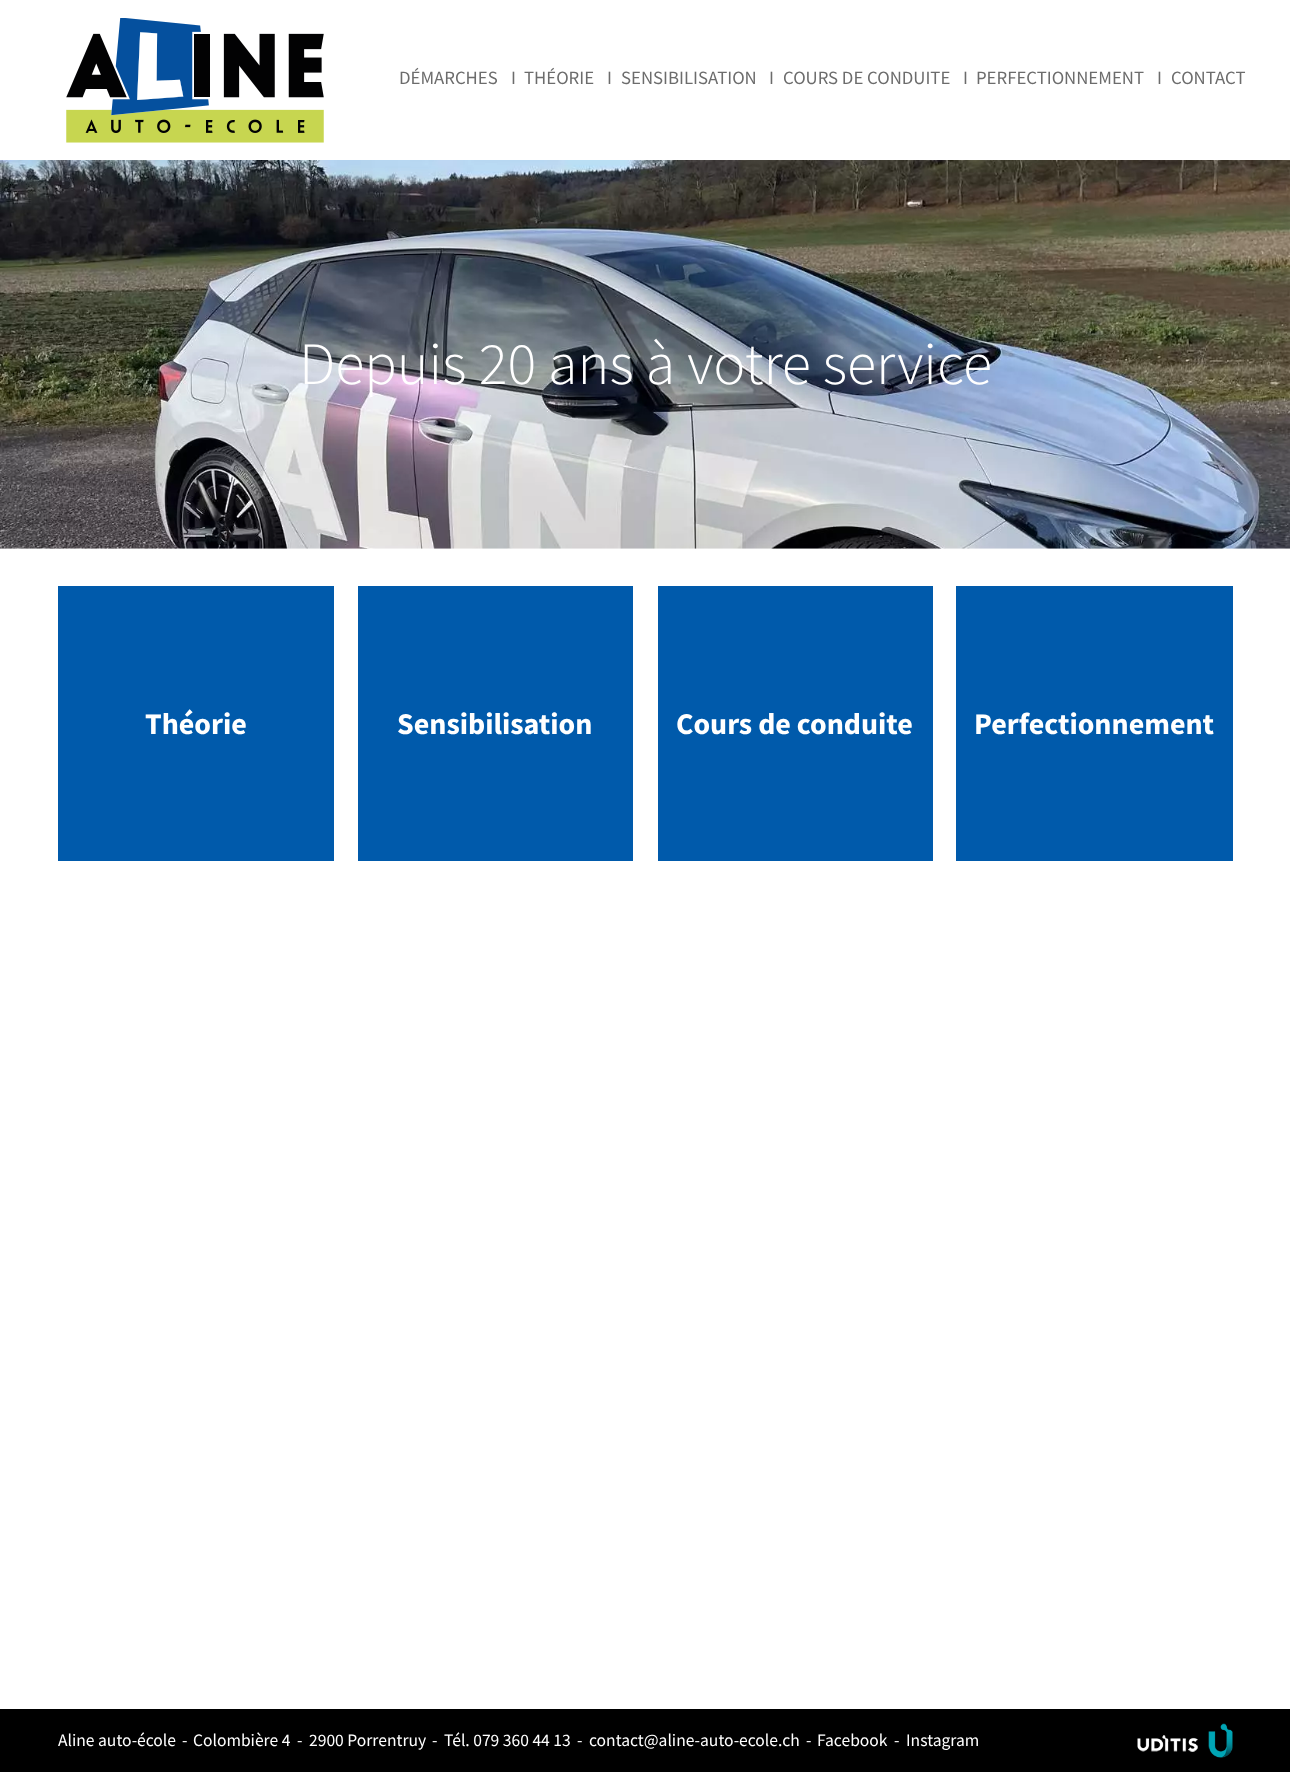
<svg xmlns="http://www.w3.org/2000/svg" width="1290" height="1772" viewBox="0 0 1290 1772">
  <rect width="100%" height="100%" fill="rgb(255,255,255)"/>
  <image x="66" y="18" width="258" height="125" href="pic1.png"/>
  <g font-family="Source Sans Pro" font-size="18.75" fill="rgb(108,108,108)">
    <text x="399" y="84">DÉMARCHES</text>
    <text x="511" y="84">I</text>
    <text x="524" y="84">THÉORIE</text>
    <text x="607" y="84">I</text>
    <text x="621" y="84">SENSIBILISATION</text>
    <text x="769" y="84">I</text>
    <text x="783" y="84">COURS DE CONDUITE</text>
    <text x="963" y="84">I</text>
    <text x="976" y="84">PERFECTIONNEMENT</text>
    <text x="1157" y="84">I</text>
    <text x="1171" y="84">CONTACT</text>
  </g>
  <image x="0" y="160" width="1290" height="389" href="pic2.png"/>
  <text x="299" y="384" font-family="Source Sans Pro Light" font-size="60" font-weight="300" fill="rgb(255,255,255)">Depuis 20 ans à votre service</text>
  <rect x="58" y="586" width="276" height="275" fill="rgb(0,90,171)"/>
  <text x="145" y="734" font-family="Source Sans Pro" font-size="30" font-weight="bold" fill="rgb(255,255,255)">Théorie</text>
  <rect x="358" y="586" width="275" height="275" fill="rgb(0,90,171)"/>
  <text x="397" y="734" font-family="Source Sans Pro" font-size="30" font-weight="bold" fill="rgb(255,255,255)">Sensibilisation</text>
  <rect x="658" y="586" width="275" height="275" fill="rgb(0,90,171)"/>
  <text x="676" y="734" font-family="Source Sans Pro" font-size="30" font-weight="bold" fill="rgb(255,255,255)">Cours de conduite</text>
  <rect x="956" y="586" width="277" height="275" fill="rgb(0,90,171)"/>
  <text x="974" y="734" font-family="Source Sans Pro" font-size="30" font-weight="bold" fill="rgb(255,255,255)">Perfectionnement</text>
  <rect x="0" y="1709" width="1290" height="63" fill="rgb(0,0,0)"/>
  <g font-family="Source Sans Pro" font-size="17.5" fill="rgb(255,255,255)">
    <text x="58" y="1746">Aline auto-école</text>
    <text x="182" y="1746">-</text>
    <text x="193" y="1746">Colombière 4</text>
    <text x="297" y="1746">-</text>
    <text x="309" y="1746">2900 Porrentruy</text>
    <text x="432" y="1746">-</text>
    <text x="444" y="1746">Tél. 079 360 44 13</text>
    <text x="577" y="1746">-</text>
    <text x="589" y="1746">contact@aline-auto-ecole.ch</text>
    <text x="806" y="1746">-</text>
    <text x="817" y="1746">Facebook</text>
    <text x="894" y="1746">-</text>
    <text x="906" y="1746">Instagram</text>
  </g>
  <image x="1137" y="1723" width="96" height="35" href="pic3.png"/>
</svg>
